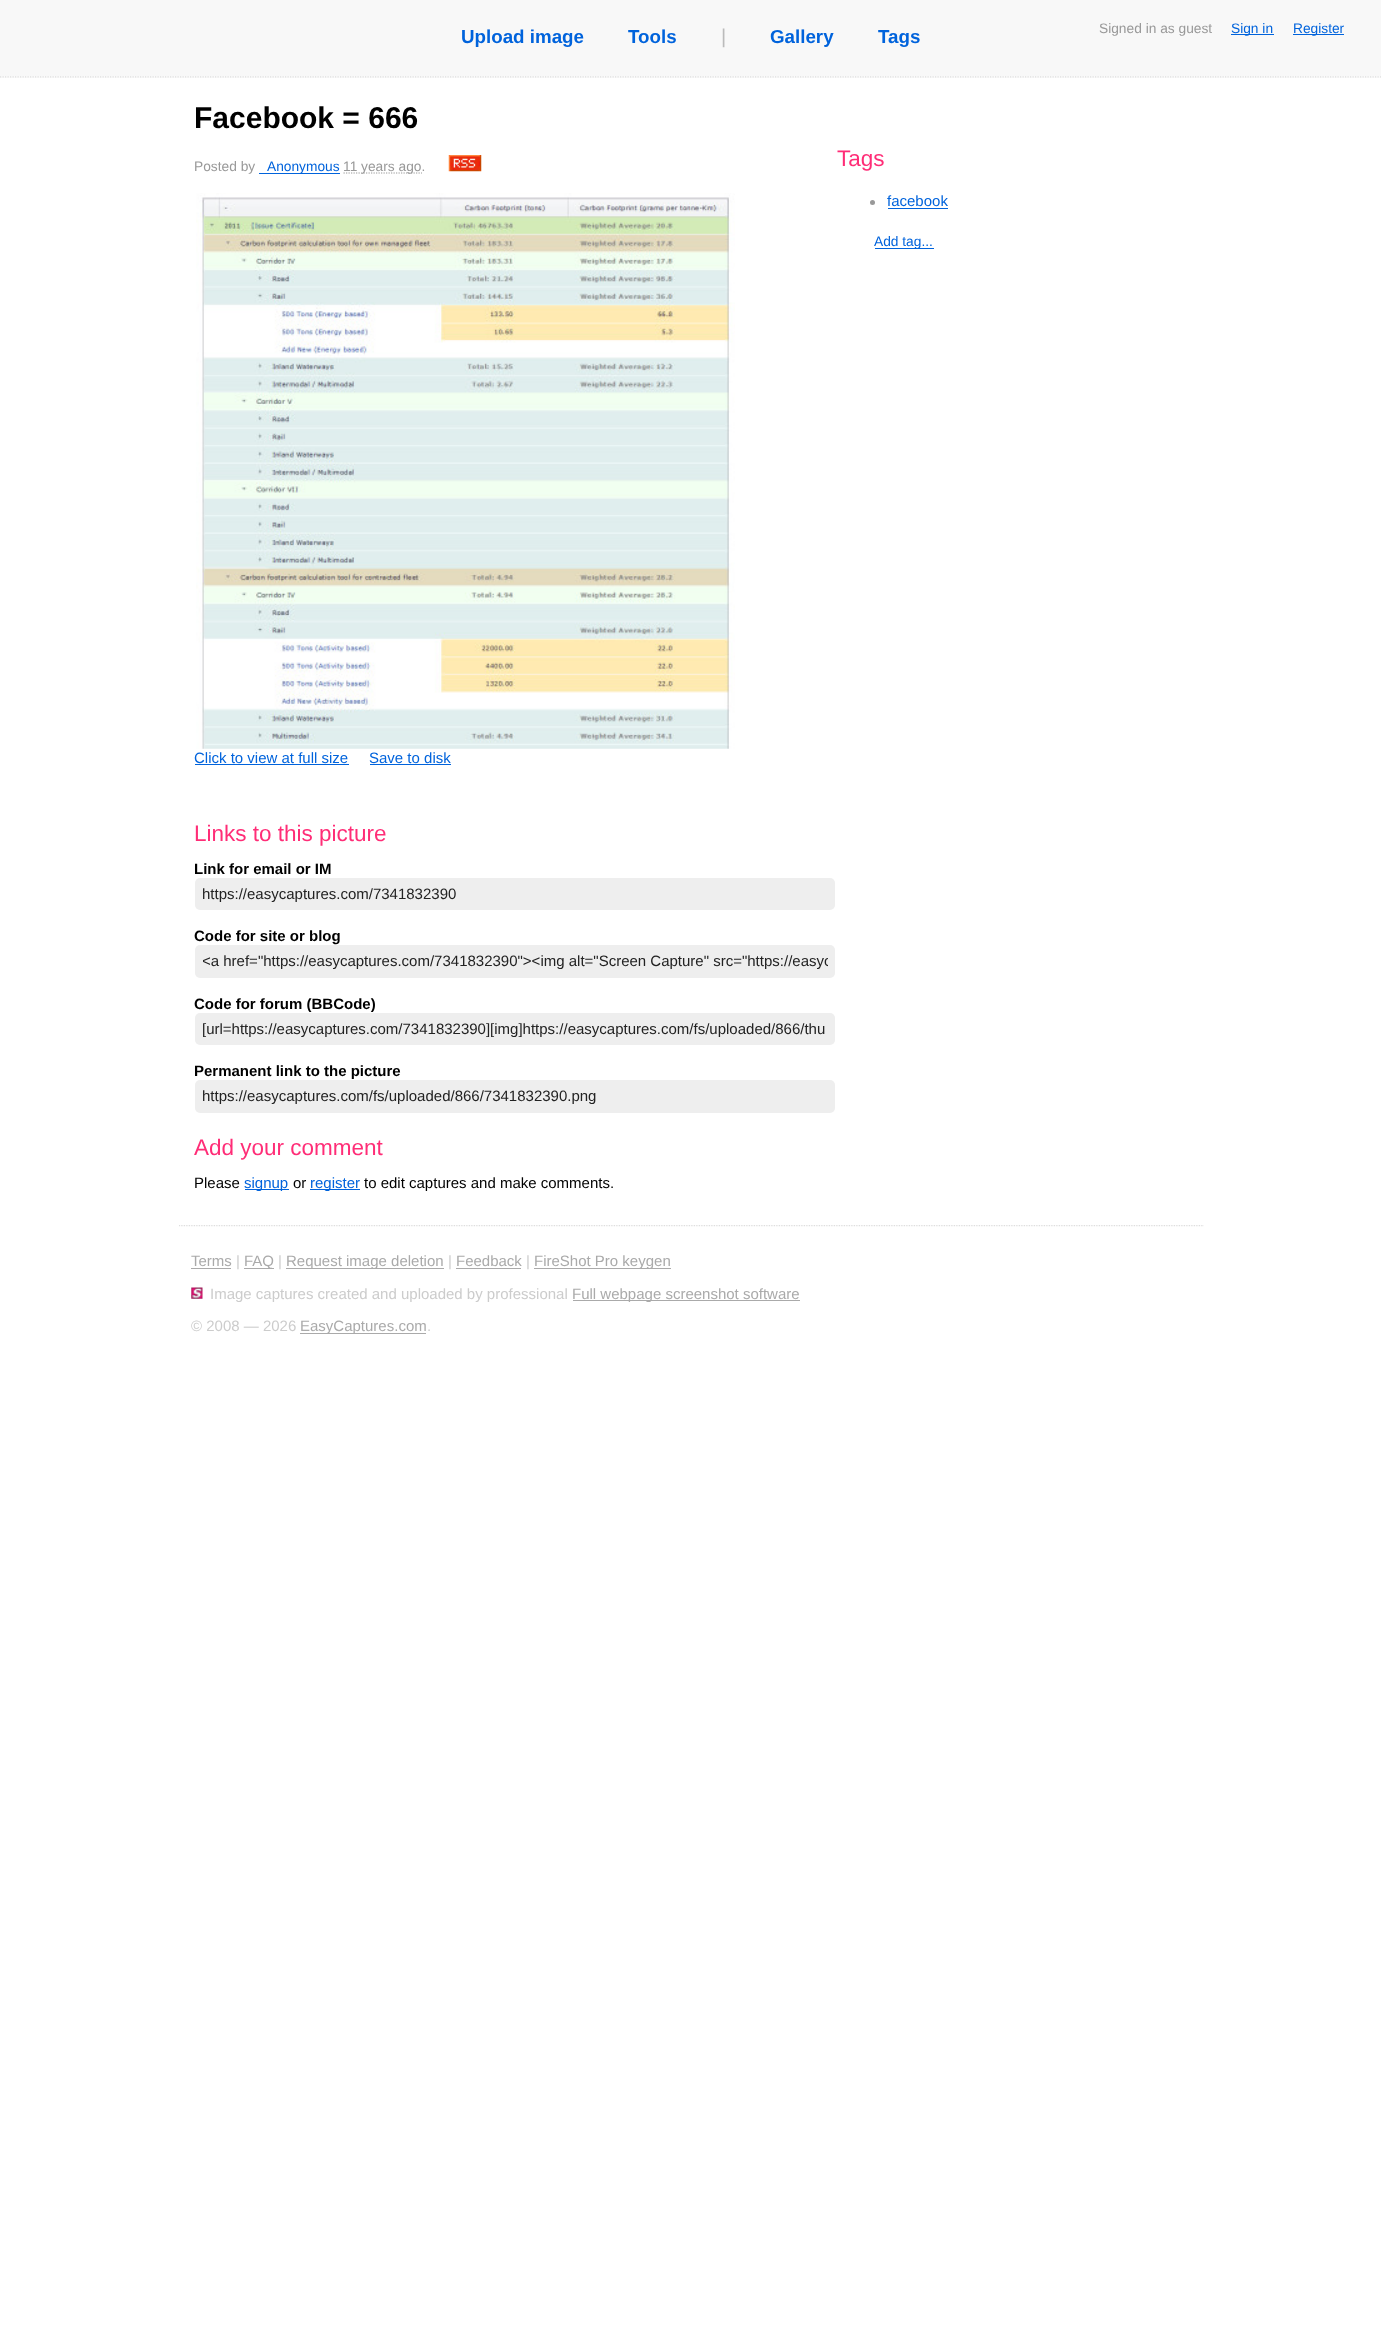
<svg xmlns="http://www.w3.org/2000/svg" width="1381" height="2333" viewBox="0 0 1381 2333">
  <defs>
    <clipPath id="clip1"><rect x="203" y="885" width="625" height="18"/></clipPath>
    <clipPath id="clip2"><rect x="203" y="953" width="625" height="17"/></clipPath>
    <clipPath id="clip3"><rect x="203" y="1088" width="625" height="17"/></clipPath>
  </defs>
  <rect width="100%" height="100%" fill="rgb(255,255,255)"/>
  <rect x="0" y="0" width="1381" height="78" fill="rgb(248,248,248)"/>
  <image x="0" y="76" width="1381" height="2" href="pic1.png"/>
  <g font-family="Liberation Sans" font-size="18.75" font-weight="bold" fill="rgb(0,99,220)">
    <text x="461" y="43">Upload image</text>
    <text x="628" y="43">Tools</text>
  </g>
  <text x="721" y="43" font-family="Liberation Sans" font-size="20" fill="rgb(187,187,187)">|</text>
  <g font-family="Liberation Sans" font-size="18.75" font-weight="bold" fill="rgb(0,99,220)">
    <text x="770" y="43">Gallery</text>
    <text x="878" y="43">Tags</text>
  </g>
  <text x="1099" y="33" font-family="Liberation Sans" font-size="13.75" fill="rgb(153,153,153)">Signed in as guest</text>
  <rect x="1231" y="34" width="43" height="1" fill="rgb(0,99,220)"/>
  <text x="1231" y="33" font-family="Liberation Sans" font-size="13.75" fill="rgb(0,99,220)">Sign in</text>
  <rect x="1293" y="34" width="51" height="1" fill="rgb(0,99,220)"/>
  <text x="1293" y="33" font-family="Liberation Sans" font-size="13.75" fill="rgb(0,99,220)">Register</text>
  <text x="194" y="128" font-family="Liberation Sans" font-size="30" font-weight="bold" fill="rgb(0,0,0)">Facebook = 666</text>
  <text x="194" y="171" font-family="Liberation Sans" font-size="13.75" fill="rgb(153,153,153)">Posted by</text>
  <rect x="259" y="173" width="81" height="1" fill="rgb(0,99,220)"/>
  <text x="267" y="171" font-family="Liberation Sans" font-size="13.75" fill="rgb(0,99,220)">Anonymous</text>
  <path d="M343.5 173H422" fill="none" stroke="rgb(153,153,153)" stroke-width="1.2" stroke-dasharray="1.25 1.25"/>
  <text x="343" y="171" font-family="Liberation Sans" font-size="13.75" fill="rgb(153,153,153)">11 years ago.</text>
  <image x="448" y="155" width="34" height="17" href="pic2.png"/>
  <image x="196" y="193" width="539" height="556" href="pic3.png"/>
  <text x="194" y="763" font-family="Liberation Sans" font-size="15" fill="rgb(0,99,220)">Click to view at full size</text>
  <rect x="195" y="764" width="154" height="1" fill="rgb(0,99,220)"/>
  <text x="369" y="763" font-family="Liberation Sans" font-size="15" fill="rgb(0,99,220)">Save to disk</text>
  <rect x="370" y="764" width="81" height="1" fill="rgb(0,99,220)"/>
  <text x="194" y="841" font-family="Liberation Sans" font-size="22.5" fill="rgb(255,45,119)">Links to this picture</text>
  <text x="194" y="874" font-family="Liberation Sans" font-size="15" font-weight="bold" fill="rgb(0,0,0)">Link for email or IM</text>
  <rect x="195" y="878" width="640" height="32" rx="5" fill="rgb(238,238,238)"/>
  <g clip-path="url(#clip1)">
    <text x="202" y="899" font-family="Liberation Sans" font-size="15" fill="rgb(34,34,34)">https://easycaptures.com/7341832390</text>
  </g>
  <text x="194" y="941" font-family="Liberation Sans" font-size="15" font-weight="bold" fill="rgb(0,0,0)">Code for site or blog</text>
  <rect x="195" y="945" width="640" height="33" rx="5" fill="rgb(238,238,238)"/>
  <g clip-path="url(#clip2)">
    <text x="202" y="966" font-family="Liberation Sans" font-size="15" fill="rgb(34,34,34)">&lt;a href="https://easycaptures.com/7341832390"&gt;&lt;img alt="Screen Capture" src="https://easyc</text>
  </g>
  <text x="194" y="1009" font-family="Liberation Sans" font-size="15" font-weight="bold" fill="rgb(0,0,0)">Code for forum (BBCode)</text>
  <rect x="195" y="1013" width="640" height="32" rx="5" fill="rgb(238,238,238)"/>
  <text x="202" y="1034" font-family="Liberation Sans" font-size="15" fill="rgb(34,34,34)">[url=https://easycaptures.com/7341832390][img]https://easycaptures.com/fs/uploaded/866/thu</text>
  <text x="194" y="1076" font-family="Liberation Sans" font-size="15" font-weight="bold" fill="rgb(0,0,0)">Permanent link to the picture</text>
  <rect x="195" y="1080" width="640" height="33" rx="5" fill="rgb(238,238,238)"/>
  <g clip-path="url(#clip3)">
    <text x="202" y="1101" font-family="Liberation Sans" font-size="15" fill="rgb(34,34,34)">https://easycaptures.com/fs/uploaded/866/7341832390.png</text>
  </g>
  <text x="194" y="1155" font-family="Liberation Sans" font-size="22.5" fill="rgb(255,45,119)">Add your comment</text>
  <text x="194" y="1188" font-family="Liberation Sans" font-size="15" fill="rgb(0,0,0)">Please</text>
  <rect x="245" y="1189" width="44" height="1" fill="rgb(0,99,220)"/>
  <text x="244" y="1188" font-family="Liberation Sans" font-size="15" fill="rgb(0,99,220)">signup</text>
  <text x="293" y="1188" font-family="Liberation Sans" font-size="15" fill="rgb(0,0,0)">or</text>
  <rect x="310" y="1189" width="50" height="1" fill="rgb(0,99,220)"/>
  <text x="310" y="1188" font-family="Liberation Sans" font-size="15" fill="rgb(0,99,220)">register</text>
  <text x="364" y="1188" font-family="Liberation Sans" font-size="15" fill="rgb(0,0,0)">to edit captures and make comments.</text>
  <text x="837" y="166" font-family="Liberation Sans" font-size="22.5" fill="rgb(255,45,119)">Tags</text>
  <circle cx="872.5" cy="202.5" r="2.5" fill="rgb(153,153,153)"/>
  <text x="887" y="206" font-family="Liberation Sans" font-size="15" fill="rgb(0,99,220)">facebook</text>
  <rect x="888" y="208" width="60" height="1" fill="rgb(0,99,220)"/>
  <rect x="875" y="248" width="59" height="1" fill="rgb(0,99,220)"/>
  <text x="874" y="246" font-family="Liberation Sans" font-size="13.75" fill="rgb(0,99,220)">Add tag...</text>
  <image x="179" y="1225" width="1025" height="2" href="pic4.png"/>
  <text x="191" y="1266" font-family="Liberation Sans" font-size="15" fill="rgb(170,170,170)">Terms</text>
  <rect x="191" y="1268" width="40" height="1" fill="rgb(170,170,170)"/>
  <text x="236" y="1266" font-family="Liberation Sans" font-size="15" fill="rgb(204,204,204)">|</text>
  <rect x="244" y="1268" width="30" height="1" fill="rgb(170,170,170)"/>
  <text x="244" y="1266" font-family="Liberation Sans" font-size="15" fill="rgb(170,170,170)">FAQ</text>
  <text x="278" y="1266" font-family="Liberation Sans" font-size="15" fill="rgb(204,204,204)">|</text>
  <rect x="286" y="1268" width="158" height="1" fill="rgb(170,170,170)"/>
  <text x="286" y="1266" font-family="Liberation Sans" font-size="15" fill="rgb(170,170,170)">Request image deletion</text>
  <text x="448" y="1266" font-family="Liberation Sans" font-size="15" fill="rgb(204,204,204)">|</text>
  <text x="456" y="1266" font-family="Liberation Sans" font-size="15" fill="rgb(170,170,170)">Feedback</text>
  <rect x="456" y="1268" width="65" height="1" fill="rgb(170,170,170)"/>
  <text x="526" y="1266" font-family="Liberation Sans" font-size="15" fill="rgb(204,204,204)">|</text>
  <rect x="534" y="1268" width="137" height="1" fill="rgb(170,170,170)"/>
  <text x="534" y="1266" font-family="Liberation Sans" font-size="15" fill="rgb(170,170,170)">FireShot Pro keygen</text>
  <image x="191" y="1287" width="12" height="12" href="pic5.png"/>
  <text x="210" y="1299" font-family="Liberation Sans" font-size="15" fill="rgb(204,204,204)">Image captures created and uploaded by professional</text>
  <rect x="573" y="1300" width="227" height="1" fill="rgb(170,170,170)"/>
  <text x="572" y="1299" font-family="Liberation Sans" font-size="15" fill="rgb(170,170,170)">Full webpage screenshot software</text>
  <text x="191" y="1331" font-family="Liberation Sans" font-size="15" fill="rgb(204,204,204)">© 2008 — 2026</text>
  <rect x="300" y="1333" width="126" height="1" fill="rgb(170,170,170)"/>
  <text x="300" y="1331" font-family="Liberation Sans" font-size="15" fill="rgb(170,170,170)">EasyCaptures.com</text>
  <text x="427" y="1331" font-family="Liberation Sans" font-size="15" fill="rgb(204,204,204)">.</text>
</svg>
